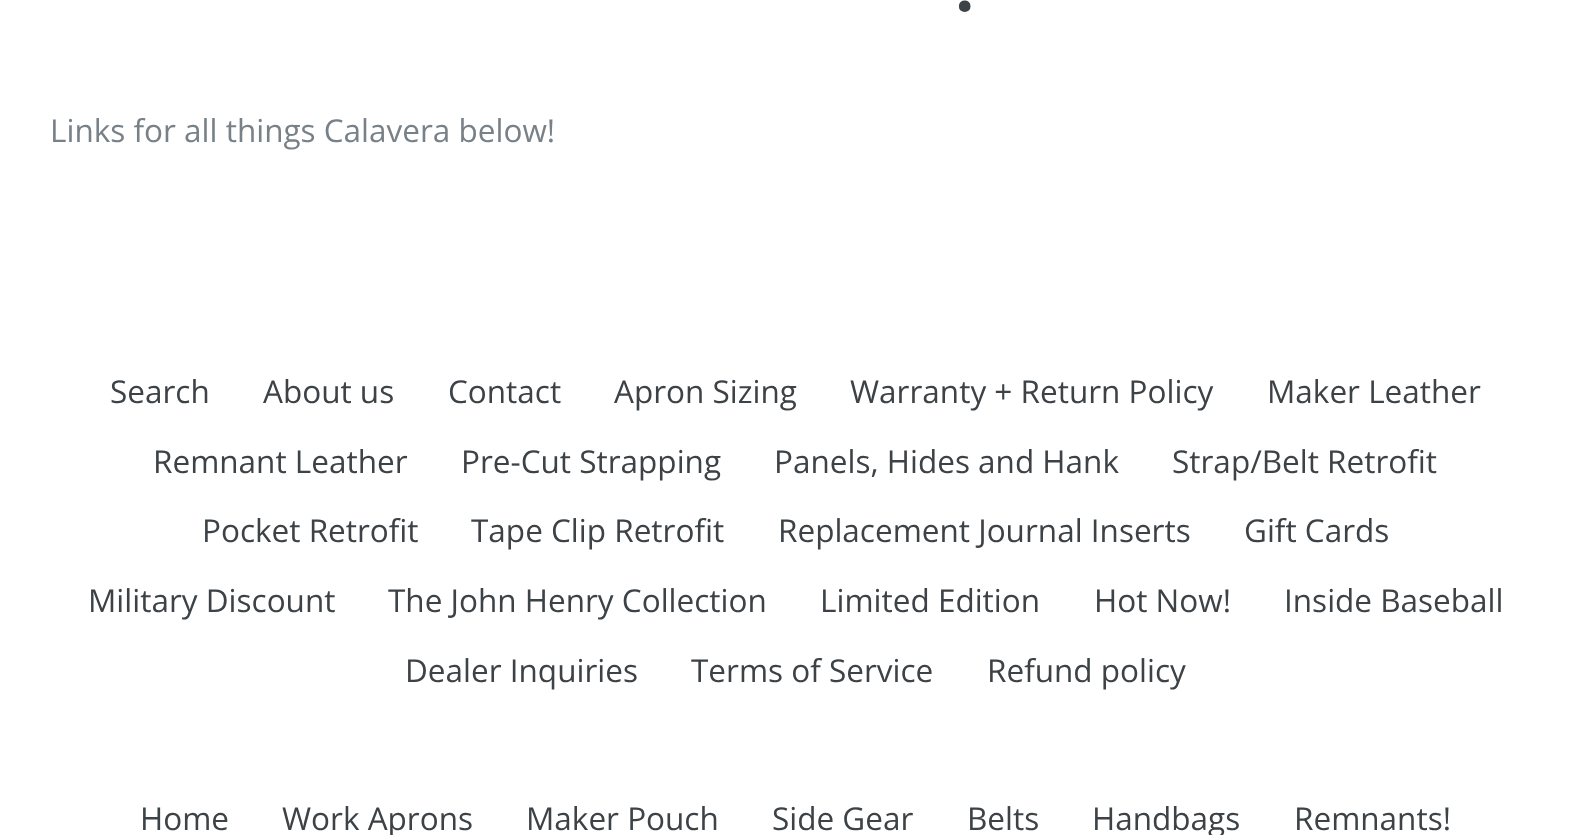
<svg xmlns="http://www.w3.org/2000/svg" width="1589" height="835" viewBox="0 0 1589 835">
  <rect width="100%" height="100%" fill="rgb(255,255,255)"/>
  <text x="955" y="11" font-family="Open Sans" font-size="68" font-weight="bold" fill="rgb(61,66,70)">.</text>
  <text x="50" y="142" font-family="Open Sans" font-size="31.5" fill="rgb(120,129,136)">Links for all things Calavera below!</text>
  <g font-family="Open Sans" font-size="31.5" fill="rgb(61,66,70)">
    <text x="110" y="403">Search</text>
    <text x="263" y="403">About us</text>
    <text x="448" y="403">Contact</text>
    <text x="614" y="403">Apron Sizing</text>
    <text x="850" y="403">Warranty + Return Policy</text>
    <text x="1267" y="403">Maker Leather</text>
    <text x="153" y="473">Remnant Leather</text>
    <text x="461" y="473">Pre-Cut Strapping</text>
    <text x="774" y="473">Panels, Hides and Hank</text>
    <text x="1172" y="473">Strap/Belt Retrofit</text>
    <text x="202" y="542">Pocket Retrofit</text>
    <text x="471" y="542">Tape Clip Retrofit</text>
    <text x="778" y="542">Replacement Journal Inserts</text>
    <text x="1244" y="542">Gift Cards</text>
    <text x="88" y="612">Military Discount</text>
    <text x="388" y="612">The John Henry Collection</text>
    <text x="820" y="612">Limited Edition</text>
    <text x="1094" y="612">Hot Now!</text>
    <text x="1284" y="612">Inside Baseball</text>
    <text x="405" y="682">Dealer Inquiries</text>
    <text x="691" y="682">Terms of Service</text>
    <text x="987" y="682">Refund policy</text>
    <text x="140" y="830">Home</text>
    <text x="282" y="830">Work Aprons</text>
    <text x="526" y="830">Maker Pouch</text>
    <text x="772" y="830">Side Gear</text>
    <text x="967" y="830">Belts</text>
    <text x="1092" y="830">Handbags</text>
    <text x="1294" y="830">Remnants!</text>
  </g>
</svg>
